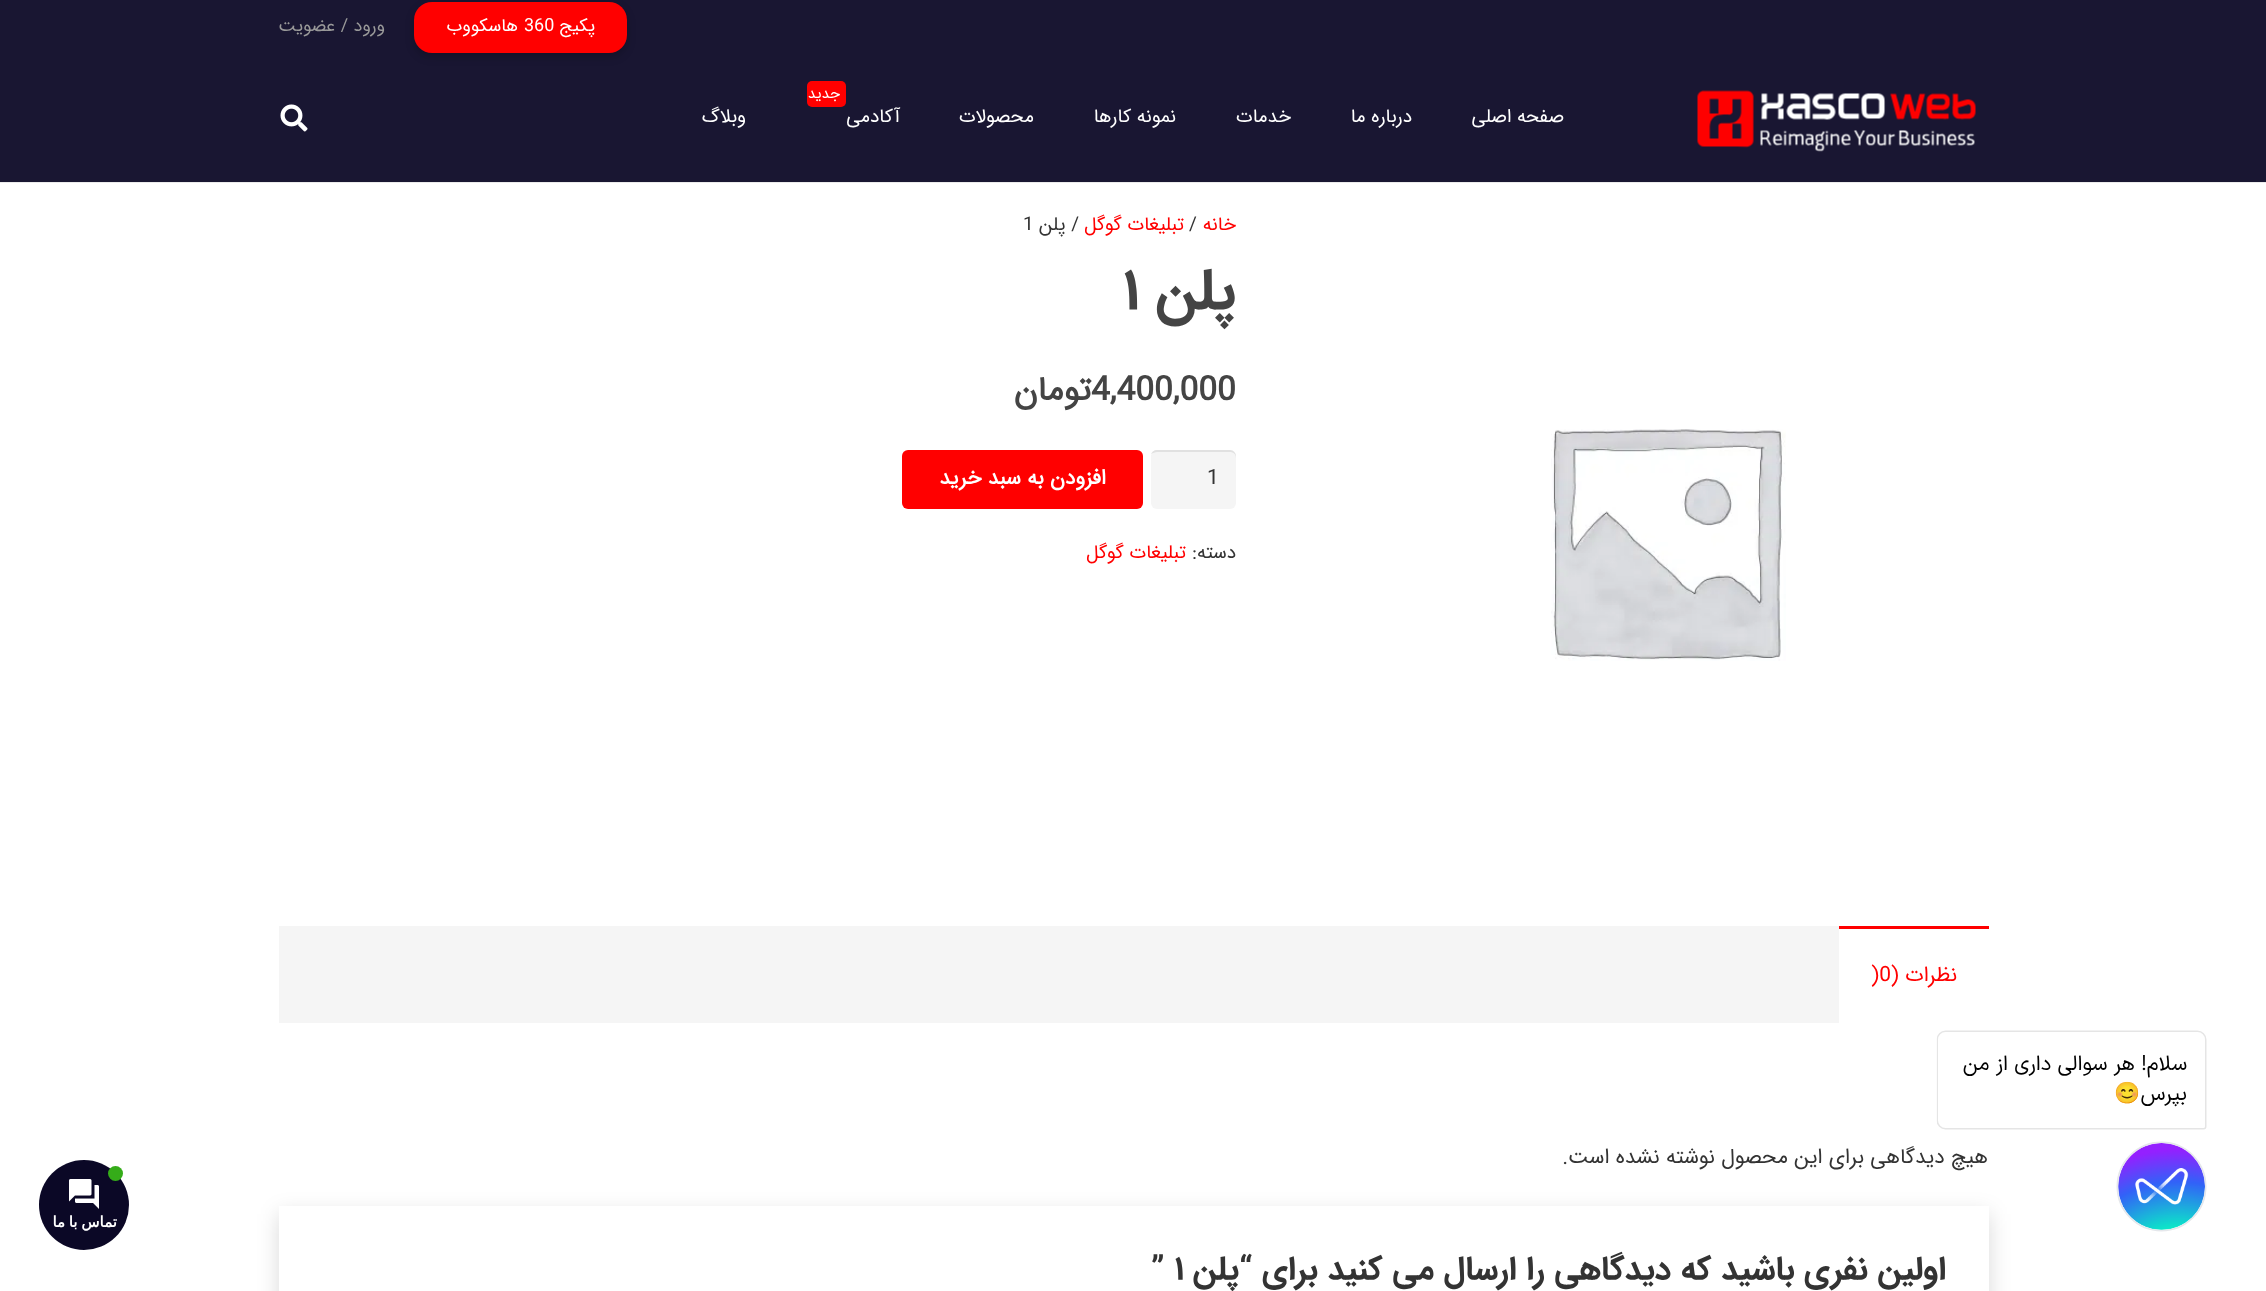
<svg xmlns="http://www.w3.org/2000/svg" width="2266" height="1291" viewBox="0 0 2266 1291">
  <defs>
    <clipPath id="clip1"><path d="M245 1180H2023V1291H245ZM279 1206H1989V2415H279Z" clip-rule="evenodd"/></clipPath>
  </defs>
  <rect width="100%" height="100%" fill="rgb(255,255,255)"/>
  <text x="1988" y="1163" font-family="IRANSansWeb" font-size="21" direction="rtl" fill="rgb(51,51,51)">هیچ دیدگاهی برای این محصول نوشته نشده است.</text>
  <g clip-path="url(#clip1)">
    <rect x="279" y="1214" width="1710" height="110" fill="rgba(0,0,0,0.15)" filter="blur(11px)"/>
  </g>
  <image x="1936" y="1030" width="271" height="202" href="pic1.png"/>
  <rect x="0" y="0" width="2266" height="182" fill="rgb(25,22,50)"/>
  <rect x="414" y="6" width="213" height="51" rx="18" fill="rgba(0,0,0,0.2)" filter="blur(4.5px)"/>
  <rect x="414" y="2" width="213" height="51" rx="18" fill="rgb(255,0,0)"/>
  <text x="595" y="31" font-family="IRANSansWeb" font-size="18" direction="rtl" fill="rgb(255,255,255)">پکیج</text>
  <text x="524" y="31" font-family="IRANSansWeb" font-size="18" fill="rgb(255,255,255)">360</text>
  <text x="518" y="31" font-family="IRANSansWeb" font-size="18" direction="rtl" fill="rgb(255,255,255)">هاسکووب</text>
  <text x="385" y="31" font-family="IRANSansWeb" font-size="18" direction="rtl" fill="rgb(153,153,153)">ورود / عضویت</text>
  <path d="M0 182V183H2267V56H2266V182Z" fill="rgb(235,235,235)"/>
  <image x="1697" y="90" width="279" height="62" href="pic2.png"/>
  <g font-family="IRANSansWeb" font-size="19" direction="rtl" fill="rgb(255,255,255)">
    <text x="1564" y="122">صفحه اصلی</text>
    <text x="1412" y="122">درباره ما</text>
    <text x="1291" y="122">خدمات</text>
    <text x="1176" y="122">نمونه کارها</text>
    <text x="1034" y="122">محصولات</text>
  </g>
  <rect x="807" y="81" width="39" height="26" rx="5" fill="rgb(255,0,0)"/>
  <text x="840" y="98" font-family="IRANSansWeb" font-size="15" direction="rtl" fill="rgb(255,255,255)">جدید</text>
  <g font-family="IRANSansWeb" font-size="19" direction="rtl" fill="rgb(255,255,255)">
    <text x="900" y="122">آکادمی</text>
    <text x="746" y="122">وبلاگ</text>
  </g>
  <image x="280" y="104" width="28" height="28" href="pic3.png"/>
  <image x="1551" y="429" width="235" height="232" href="pic4.png"/>
  <text x="1236" y="230" font-family="IRANSansWeb" font-size="19" direction="rtl" fill="rgb(255,0,0)">خانه</text>
  <text x="1189" y="230" font-family="IRANSansWeb" font-size="19" fill="rgb(51,51,51)">/</text>
  <text x="1184" y="230" font-family="IRANSansWeb" font-size="19" direction="rtl" fill="rgb(255,0,0)">تبلیغات گوگل</text>
  <text x="1079" y="230" font-family="IRANSansWeb" font-size="19" direction="rtl" fill="rgb(51,51,51)">/ پلن</text>
  <text x="1023" y="230" font-family="IRANSansWeb" font-size="19" fill="rgb(51,51,51)">1</text>
  <text x="1236" y="308" font-family="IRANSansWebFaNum" font-size="57" font-weight="bold" letter-spacing="-2" direction="rtl" fill="rgb(68,68,68)">پلن</text>
  <text x="1123" y="308" font-family="IRANSansWebFaNum" font-size="57" font-weight="bold" letter-spacing="-2" fill="rgb(68,68,68)">1</text>
  <text x="1091" y="400" font-family="IRANSansWeb" font-size="33.5" font-weight="bold" fill="rgb(68,68,68)">4,400,000</text>
  <text x="1091" y="400" font-family="IRANSansWeb" font-size="33.5" font-weight="bold" direction="rtl" fill="rgb(68,68,68)">تومان</text>
  <rect x="1151" y="450" width="85" height="59" rx="6" fill="rgb(245,245,245)"/>
  <path d="M1157 452H1230C1233 452 1236 454 1236 458V456C1236 453 1233 450 1230 450H1157C1154 450 1152 452 1151 454C1153 453 1155 452 1157 452Z" fill="rgb(225,225,225)"/>
  <text x="1207" y="484" font-family="IRANSansWeb" font-size="21" fill="rgb(51,51,51)">1</text>
  <rect x="902" y="450" width="241" height="59" rx="6" fill="rgb(255,0,0)"/>
  <text x="1106" y="484" font-family="IRANSansWeb" font-size="21" font-weight="bold" direction="rtl" fill="rgb(255,255,255)">افزودن به سبد خرید</text>
  <text x="1236" y="558" font-family="IRANSansWeb" font-size="19" direction="rtl" fill="rgb(51,51,51)">دسته:</text>
  <text x="1186" y="558" font-family="IRANSansWeb" font-size="19" direction="rtl" fill="rgb(255,0,0)">تبلیغات گوگل</text>
  <rect x="279" y="926" width="1560" height="97" fill="rgb(245,245,245)"/>
  <rect x="1839" y="926" width="150" height="3" fill="rgb(255,0,0)"/>
  <text x="1957" y="981" font-family="IRANSansWeb" font-size="21" direction="rtl" fill="rgb(255,0,0)">نظرات (</text>
  <text x="1871" y="981" font-family="IRANSansWeb" font-size="21" fill="rgb(255,0,0)">)0</text>
  <text x="1946" y="1279" font-family="IRANSansWebFaNum" font-size="33" font-weight="bold" direction="rtl" fill="rgb(51,51,51)">اولین نفری باشید که دیدگاهی را ارسال می کنید برای “پلن</text>
  <text x="1151" y="1279" font-family="IRANSansWebFaNum" font-size="33" font-weight="bold" fill="rgb(51,51,51)">” 1</text>
  <circle cx="84" cy="1205" r="45" fill="rgb(11,8,38)"/>
  <circle cx="115.5" cy="1173.5" r="7.5" fill="rgb(53,172,25)"/>
  <image x="69" y="1179" width="30" height="30" href="pic5.png"/>
  <text x="117" y="1227" word-spacing="-1" font-family="DejaVu Sans" font-size="15" font-weight="bold" direction="rtl" fill="rgb(255,255,255)">تماس با ما</text>
</svg>
